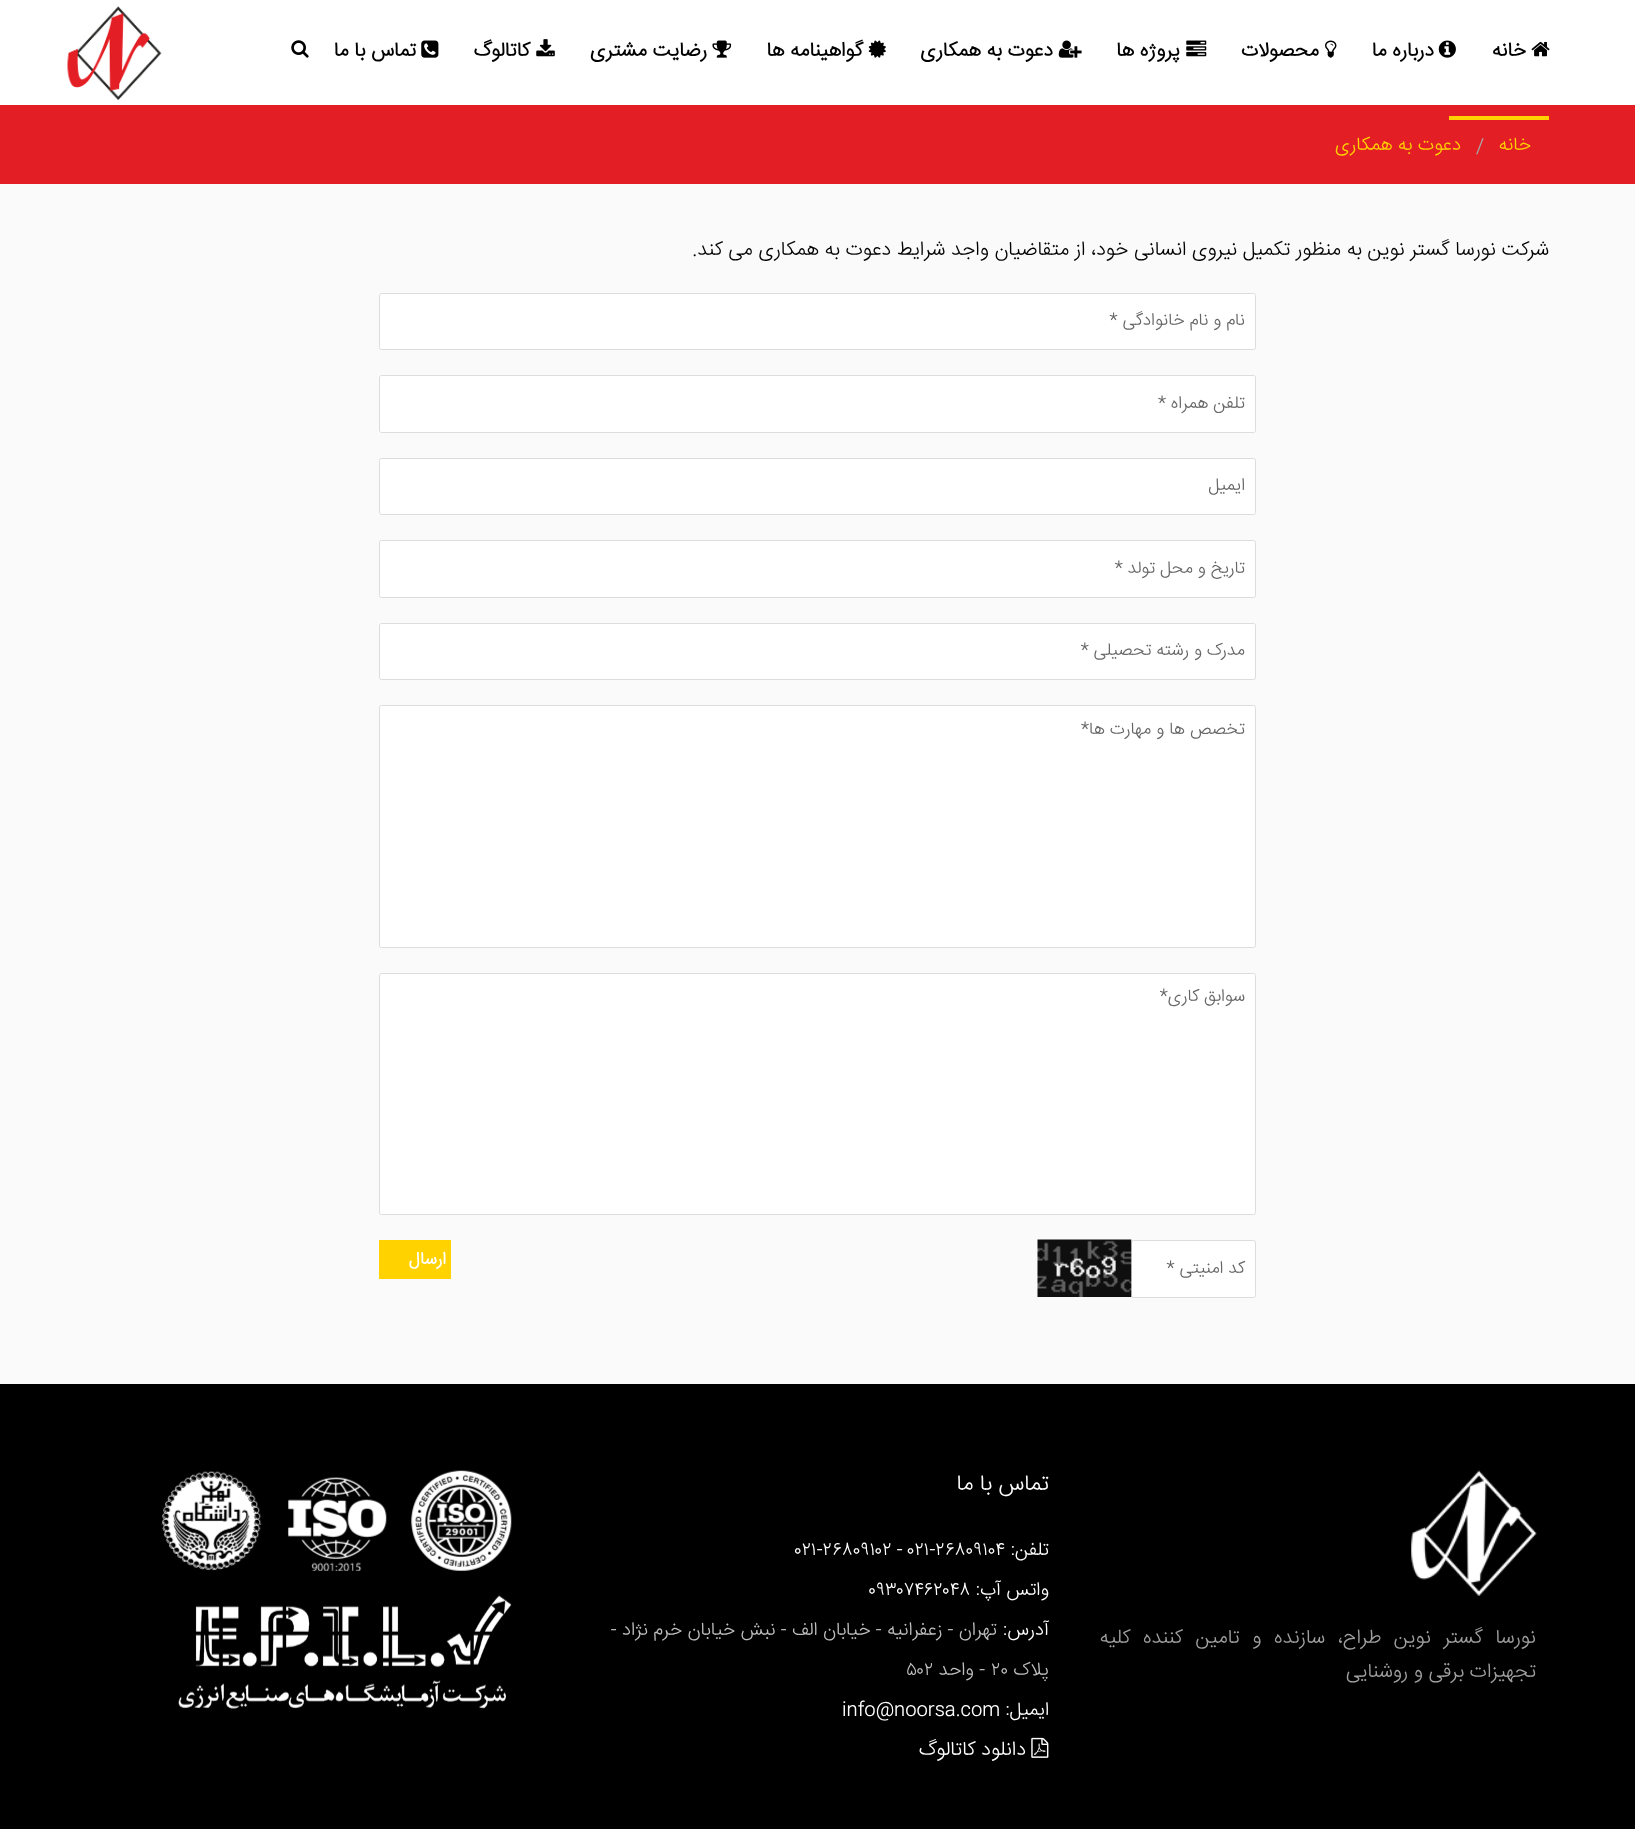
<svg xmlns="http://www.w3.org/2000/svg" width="1635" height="1829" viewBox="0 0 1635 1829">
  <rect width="100%" height="100%" fill="rgb(250,250,250)"/>
  <rect x="0" y="0" width="1635" height="105" fill="rgb(255,255,255)"/>
  <image x="1531" y="41" width="19" height="16" href="pic1.png"/>
  <text x="1526" y="56" font-family="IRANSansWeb" font-size="20" font-weight="bold" direction="rtl" fill="rgb(0,0,0)">خانه</text>
  <image x="1438" y="40" width="18" height="18" href="pic2.png"/>
  <text x="1434" y="56" font-family="IRANSansWeb" font-size="20" font-weight="bold" direction="rtl" fill="rgb(0,0,0)">درباره ما</text>
  <image x="1325" y="40" width="12" height="18" href="pic3.png"/>
  <text x="1319" y="56" font-family="IRANSansWeb" font-size="20" font-weight="bold" direction="rtl" fill="rgb(0,0,0)">محصولات</text>
  <image x="1186" y="40" width="21" height="17" href="pic4.png"/>
  <text x="1180" y="56" font-family="IRANSansWeb" font-size="20" font-weight="bold" direction="rtl" fill="rgb(0,0,0)">پروژه ها</text>
  <image x="1058" y="40" width="24" height="18" href="pic5.png"/>
  <text x="1053" y="56" font-family="IRANSansWeb" font-size="20" font-weight="bold" direction="rtl" fill="rgb(0,0,0)">دعوت به همکاری</text>
  <image x="868" y="40" width="18" height="18" href="pic6.png"/>
  <text x="863" y="56" font-family="IRANSansWeb" font-size="20" font-weight="bold" direction="rtl" fill="rgb(0,0,0)">گواهینامه ها</text>
  <image x="712" y="40" width="20" height="18" href="pic7.png"/>
  <text x="707" y="56" font-family="IRANSansWeb" font-size="20" font-weight="bold" direction="rtl" fill="rgb(0,0,0)">رضایت مشتری</text>
  <image x="536" y="39" width="19" height="18" href="pic8.png"/>
  <text x="530" y="56" font-family="IRANSansWeb" font-size="20" font-weight="bold" direction="rtl" fill="rgb(0,0,0)">کاتالوگ</text>
  <image x="421" y="40" width="18" height="18" href="pic9.png"/>
  <text x="416" y="56" font-family="IRANSansWeb" font-size="20" font-weight="bold" direction="rtl" fill="rgb(0,0,0)">تماس با ما</text>
  <image x="291" y="40" width="18" height="18" href="pic10.png"/>
  <image x="67" y="6" width="95" height="94" href="pic11.png"/>
  <rect x="0" y="105" width="1635" height="79" fill="rgb(227,30,36)"/>
  <rect x="1449" y="116" width="100" height="4" fill="rgb(255,210,0)"/>
  <text x="1531" y="150" font-family="IRANSansWeb" font-size="19" font-weight="300" direction="rtl" fill="rgb(255,210,0)">خانه</text>
  <text x="1476" y="152" font-family="IRANSansWeb" font-size="19" font-weight="300" fill="rgb(170,170,170)">/</text>
  <text x="1461" y="150" font-family="IRANSansWeb" font-size="19" font-weight="300" direction="rtl" fill="rgb(255,210,0)">دعوت به همکاری</text>
  <text x="1549" y="255" font-family="IRANSansWeb" font-size="20" font-weight="300" direction="rtl" fill="rgb(0,0,0)">شرکت نورسا گستر نوین به منظور تکمیل نیروی انسانی خود، از متقاضیان واجد شرایط دعوت به همکاری می کند.</text>
  <rect x="379.5" y="293.5" width="876" height="56" rx="2" fill="rgb(255,255,255)" stroke="rgb(221,221,221)"/>
  <text x="1245" y="325" font-family="IRANSansWeb" font-size="17.5" font-weight="300" direction="rtl" fill="rgb(102,102,102)">نام و نام خانوادگی *</text>
  <rect x="379.5" y="375.5" width="876" height="57" rx="2" fill="rgb(255,255,255)" stroke="rgb(221,221,221)"/>
  <text x="1245" y="408" font-family="IRANSansWeb" font-size="17.5" font-weight="300" direction="rtl" fill="rgb(102,102,102)">تلفن همراه *</text>
  <rect x="379.5" y="458.5" width="876" height="56" rx="2" fill="rgb(255,255,255)" stroke="rgb(221,221,221)"/>
  <text x="1245" y="490" font-family="IRANSansWeb" font-size="17.5" font-weight="300" direction="rtl" fill="rgb(102,102,102)">ایمیل</text>
  <rect x="379.5" y="540.5" width="876" height="57" rx="2" fill="rgb(255,255,255)" stroke="rgb(221,221,221)"/>
  <text x="1245" y="573" font-family="IRANSansWeb" font-size="17.5" font-weight="300" direction="rtl" fill="rgb(102,102,102)">تاریخ و محل تولد *</text>
  <rect x="379.5" y="623.5" width="876" height="56" rx="2" fill="rgb(255,255,255)" stroke="rgb(221,221,221)"/>
  <text x="1245" y="655" font-family="IRANSansWeb" font-size="17.5" font-weight="300" direction="rtl" fill="rgb(102,102,102)">مدرک و رشته تحصیلی *</text>
  <rect x="379.5" y="705.5" width="876" height="242" rx="2" fill="rgb(255,255,255)" stroke="rgb(221,221,221)"/>
  <text x="1245" y="734" font-family="IRANSansWeb" font-size="17.5" font-weight="300" direction="rtl" fill="rgb(102,102,102)">تخصص ها و مهارت ها*</text>
  <rect x="379.5" y="973.5" width="876" height="241" rx="2" fill="rgb(255,255,255)" stroke="rgb(221,221,221)"/>
  <text x="1245" y="1001" font-family="IRANSansWeb" font-size="17.5" font-weight="300" direction="rtl" fill="rgb(102,102,102)">سوابق کاری*</text>
  <rect x="1131.5" y="1240.5" width="124" height="57" rx="2" fill="rgb(255,255,255)" stroke="rgb(221,221,221)"/>
  <text x="1245" y="1273" font-family="IRANSansWeb" font-size="17.5" font-weight="300" direction="rtl" fill="rgb(102,102,102)">کد امنیتی *</text>
  <image x="1037" y="1239" width="95" height="58" href="pic12.png"/>
  <rect x="379" y="1240" width="72" height="39" fill="rgb(255,210,0)"/>
  <text x="446" y="1264" font-family="IRANSansWeb" font-size="17.5" font-weight="bold" letter-spacing="2.5" direction="rtl" fill="rgb(255,255,255)">ارسال</text>
  <rect x="0" y="1384" width="1635" height="445" fill="rgb(0,0,0)"/>
  <image x="1411" y="1470" width="126" height="126" href="pic13.png"/>
  <g font-family="IRANSansWeb" font-size="20" font-weight="300" direction="rtl" fill="rgb(160,160,160)">
    <text>
      <tspan x="1536" y="1643" word-spacing="7">نورسا گستر نوین طراح، سازنده و تامین کننده کلیه</tspan>
      <tspan x="1536" y="1677">تجهیزات برقی و روشنایی</tspan>
    </text>
  </g>
  <text x="1049" y="1490" font-family="IRANSansWeb" font-size="22.5" font-weight="300" direction="rtl" fill="rgb(255,255,255)">تماس با ما</text>
  <text x="1049" y="1555" font-family="IRANSansWeb" font-size="18.75" font-weight="300" direction="rtl" fill="rgb(255,255,255)">تلفن:</text>
  <text x="795" y="1555" font-family="IRANSansWeb" font-size="18.75" font-weight="300" fill="rgb(255,255,255)">۰۲۱-۲۶۸۰۹۱۰۲ - ۰۲۱-۲۶۸۰۹۱۰۴</text>
  <text x="1049" y="1595" font-family="IRANSansWeb" font-size="18.75" font-weight="300" direction="rtl" fill="rgb(255,255,255)">واتس آپ:</text>
  <text x="868" y="1595" font-family="IRANSansWeb" font-size="18.75" font-weight="300" fill="rgb(255,255,255)">۰۹۳۰۷۴۶۲۰۴۸</text>
  <text x="1049" y="1635" font-family="IRANSansWeb" font-size="18.75" font-weight="300" direction="rtl" fill="rgb(255,255,255)">آدرس:</text>
  <g font-family="IRANSansWeb" font-size="18.75" font-weight="300" direction="rtl" fill="rgb(191,191,191)">
    <text x="997" y="1635">تهران - زعفرانیه - خیابان الف - نبش خیابان خرم نژاد -</text>
    <text x="1049" y="1675">پلاک</text>
  </g>
  <text x="991" y="1675" font-family="IRANSansWeb" font-size="18.75" font-weight="300" fill="rgb(191,191,191)">۲۰</text>
  <text x="985" y="1675" font-family="IRANSansWeb" font-size="18.75" font-weight="300" direction="rtl" fill="rgb(191,191,191)">- واحد</text>
  <text x="906" y="1675" font-family="IRANSansWeb" font-size="18.75" font-weight="300" fill="rgb(191,191,191)">۵۰۲</text>
  <text x="1049" y="1715" font-family="IRANSansWeb" font-size="18.75" font-weight="300" direction="rtl" fill="rgb(255,255,255)">ایمیل:</text>
  <text x="842" y="1715" font-family="IRANSansWeb" font-size="18.75" font-weight="300" fill="rgb(255,255,255)">info@noorsa.com</text>
  <image x="1031" y="1737" width="18" height="21" href="pic14.png"/>
  <text x="1026" y="1755" font-family="IRANSansWeb" font-size="20" font-weight="300" direction="rtl" fill="rgb(255,255,255)">دانلود کاتالوگ</text>
  <image x="411" y="1470" width="101" height="101" href="pic15.png"/>
  <image x="287" y="1477" width="100" height="94" href="pic16.png"/>
  <image x="161" y="1471" width="101" height="100" href="pic17.png"/>
  <image x="178" y="1595" width="334" height="114" href="pic18.png"/>
</svg>
